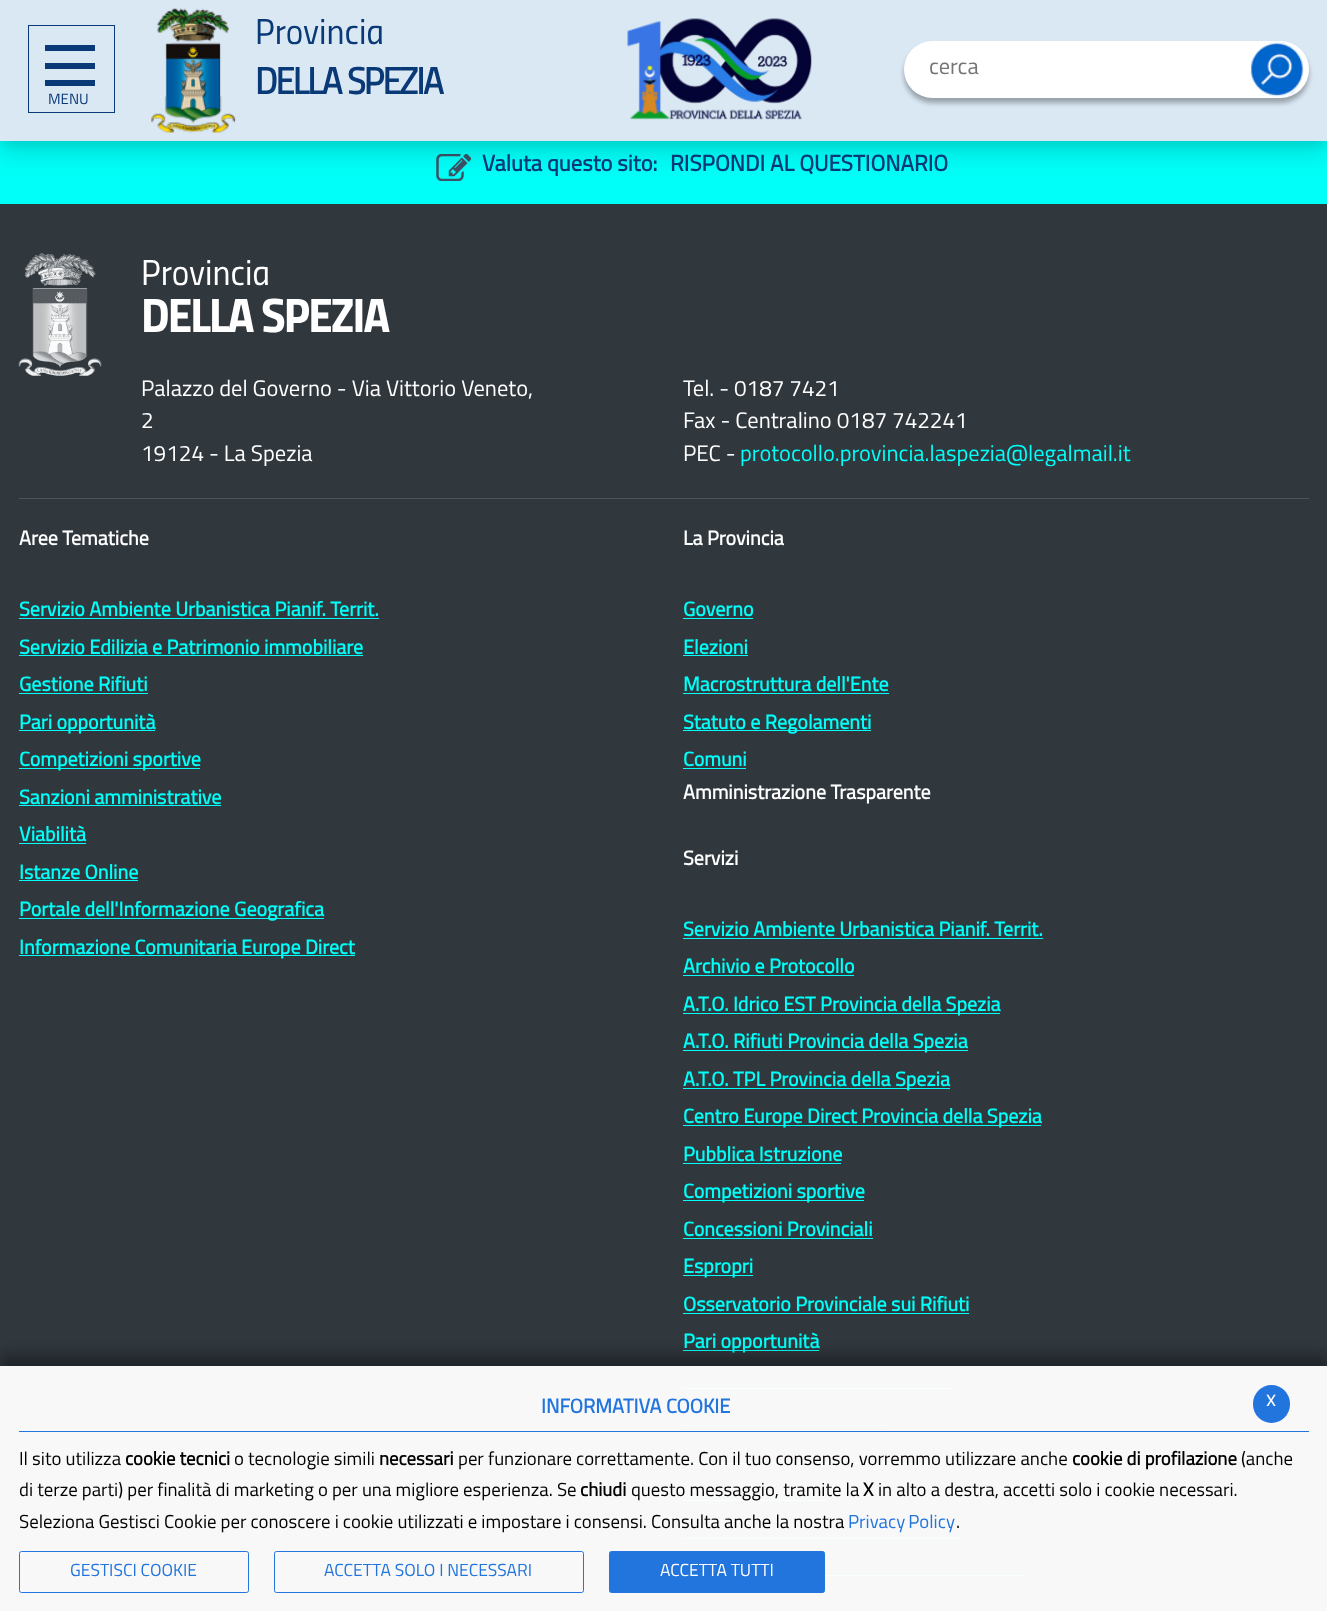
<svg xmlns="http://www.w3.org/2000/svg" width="1327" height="1611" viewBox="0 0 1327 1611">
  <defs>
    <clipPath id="clip1"><path d="M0 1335H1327V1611H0ZM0 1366H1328V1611H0Z" clip-rule="evenodd"/></clipPath>
  </defs>
  <rect width="100%" height="100%" fill="rgb(48,55,61)"/>
  <rect x="0" y="141" width="1327" height="63" fill="rgb(0,255,248)"/>
  <image x="436" y="154" width="35" height="27" href="pic4.png"/>
  <rect x="0" y="3" width="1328" height="141" fill="rgba(0,0,0,0.09)" filter="blur(6px)"/>
  <rect x="0" y="13" width="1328" height="141" fill="rgba(0,0,0,0.12)" filter="blur(12.5px)"/>
  <rect x="0" y="0" width="1327" height="141" fill="rgb(218,232,244)"/>
  <image x="151" y="8" width="85" height="125" href="pic1.png"/>
  <text x="255" y="44" font-family="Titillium" font-size="36" fill="rgb(10,57,119)">Provincia</text>
  <text x="255" y="94" font-family="'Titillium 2'" font-size="37.5" font-weight="bold" letter-spacing="-1.9" fill="rgb(10,57,119)">DELLA SPEZIA</text>
  <image x="627" y="18" width="185" height="102" href="pic2.png"/>
  <rect x="904" y="46" width="405" height="57" rx="28.5" fill="rgba(0,0,0,0.3)" filter="blur(2.5px)"/>
  <rect x="904" y="41" width="405" height="57" rx="28.5" fill="rgb(255,255,255)"/>
  <text x="929" y="74" font-family="'Titillium 2'" font-size="22.5" fill="rgb(117,117,117)">cerca</text>
  <image x="1250" y="41" width="55" height="56" href="pic3.png"/>
  <rect x="28.5" y="25.5" width="86" height="87" fill="none" stroke="rgb(10,57,119)"/>
  <rect x="45" y="45" width="50" height="6" fill="rgb(10,57,119)"/>
  <rect x="45" y="63" width="50" height="6" fill="rgb(10,57,119)"/>
  <rect x="45" y="80" width="50" height="6" fill="rgb(10,57,119)"/>
  <text x="48" y="104" font-family="'Titillium 2'" font-size="15" fill="rgb(10,57,119)">MENU</text>
  <g font-family="Titillium" font-size="22.5" font-weight="bold" fill="rgb(10,57,119)">
    <text x="482" y="171">Valuta questo sito:</text>
    <text x="670" y="171">RISPONDI AL QUESTIONARIO</text>
  </g>
  <image x="18" y="253" width="84" height="123" href="pic5.png"/>
  <text x="141" y="285" font-family="Titillium" font-size="36" fill="rgb(255,255,255)">Provincia</text>
  <text x="141" y="332" font-family="Titillium" font-size="48.5" font-weight="bold" font-style="italic" letter-spacing="-1.9" fill="rgb(255,255,255)">DELLA SPEZIA</text>
  <g font-family="'Titillium 2'" font-size="22.5" fill="rgb(255,255,255)">
    <text>
      <tspan x="141" y="396">Palazzo del Governo - Via Vittorio Veneto,</tspan>
      <tspan x="141" y="428">2</tspan>
      <tspan x="141" y="461">19124 - La Spezia</tspan>
    </text>
    <text>
      <tspan x="683" y="396">Tel. - 0187 7421</tspan>
      <tspan x="683" y="428">Fax - Centralino 0187 742241</tspan>
      <tspan x="683" y="461">PEC -</tspan>
    </text>
  </g>
  <text x="740" y="461" font-family="'Titillium 2'" font-size="22.5" fill="rgb(0,255,248)">protocollo.provincia.laspezia@legalmail.it</text>
  <rect x="19" y="498" width="1290" height="1" fill="rgb(73,84,91)"/>
  <text x="19" y="545" font-family="Titillium" font-size="20" font-weight="bold" fill="rgb(255,255,255)">Aree Tematiche</text>
  <text x="19" y="616" font-family="Titillium" font-size="20" font-weight="bold" fill="rgb(0,255,248)">Servizio Ambiente Urbanistica Pianif. Territ.</text>
  <rect x="19" y="618" width="360" height="1" fill="rgb(0,255,248)"/>
  <text x="19" y="654" font-family="Titillium" font-size="20" font-weight="bold" fill="rgb(0,255,248)">Servizio Edilizia e Patrimonio immobiliare</text>
  <rect x="19" y="655" width="344" height="1" fill="rgb(0,255,248)"/>
  <text x="19" y="691" font-family="Titillium" font-size="20" font-weight="bold" fill="rgb(0,255,248)">Gestione Rifiuti</text>
  <rect x="19" y="693" width="129" height="1" fill="rgb(0,255,248)"/>
  <rect x="19" y="730" width="136" height="1" fill="rgb(0,255,248)"/>
  <text x="19" y="729" font-family="Titillium" font-size="20" font-weight="bold" fill="rgb(0,255,248)">Pari opportunità</text>
  <rect x="19" y="768" width="181" height="1" fill="rgb(0,255,248)"/>
  <g font-family="Titillium" font-size="20" font-weight="bold" fill="rgb(0,255,248)">
    <text>
      <tspan x="19" y="766">Competizioni sportive</tspan>
      <tspan x="19" y="804">Sanzioni amministrative</tspan>
    </text>
  </g>
  <rect x="19" y="805" width="202" height="1" fill="rgb(0,255,248)"/>
  <text x="19" y="841" font-family="Titillium" font-size="20" font-weight="bold" fill="rgb(0,255,248)">Viabilità</text>
  <rect x="19" y="843" width="67" height="1" fill="rgb(0,255,248)"/>
  <text x="19" y="879" font-family="Titillium" font-size="20" font-weight="bold" fill="rgb(0,255,248)">Istanze Online</text>
  <rect x="19" y="880" width="119" height="1" fill="rgb(0,255,248)"/>
  <rect x="19" y="918" width="305" height="1" fill="rgb(0,255,248)"/>
  <text x="19" y="916" font-family="Titillium" font-size="20" font-weight="bold" fill="rgb(0,255,248)">Portale dell'Informazione Geografica</text>
  <rect x="19" y="955" width="336" height="1" fill="rgb(0,255,248)"/>
  <text x="19" y="954" font-family="Titillium" font-size="20" font-weight="bold" fill="rgb(0,255,248)">Informazione Comunitaria Europe Direct</text>
  <text x="683" y="545" font-family="Titillium" font-size="20" font-weight="bold" fill="rgb(255,255,255)">La Provincia</text>
  <text x="683" y="616" font-family="Titillium" font-size="20" font-weight="bold" fill="rgb(0,255,248)">Governo</text>
  <rect x="683" y="618" width="70" height="1" fill="rgb(0,255,248)"/>
  <text x="683" y="654" font-family="Titillium" font-size="20" font-weight="bold" fill="rgb(0,255,248)">Elezioni</text>
  <rect x="683" y="655" width="65" height="1" fill="rgb(0,255,248)"/>
  <text x="683" y="691" font-family="Titillium" font-size="20" font-weight="bold" fill="rgb(0,255,248)">Macrostruttura dell'Ente</text>
  <rect x="683" y="693" width="206" height="1" fill="rgb(0,255,248)"/>
  <rect x="683" y="730" width="188" height="1" fill="rgb(0,255,248)"/>
  <g font-family="Titillium" font-size="20" font-weight="bold" fill="rgb(0,255,248)">
    <text>
      <tspan x="683" y="729">Statuto e Regolamenti</tspan>
      <tspan x="683" y="766">Comuni</tspan>
    </text>
  </g>
  <rect x="683" y="768" width="63" height="1" fill="rgb(0,255,248)"/>
  <g font-family="Titillium" font-size="20" font-weight="bold" fill="rgb(255,255,255)">
    <text x="683" y="799">Amministrazione Trasparente</text>
    <text x="683" y="865">Servizi</text>
  </g>
  <text x="683" y="936" font-family="Titillium" font-size="20" font-weight="bold" fill="rgb(0,255,248)">Servizio Ambiente Urbanistica Pianif. Territ.</text>
  <rect x="683" y="938" width="360" height="1" fill="rgb(0,255,248)"/>
  <text x="683" y="973" font-family="Titillium" font-size="20" font-weight="bold" fill="rgb(0,255,248)">Archivio e Protocollo</text>
  <rect x="683" y="975" width="171" height="1" fill="rgb(0,255,248)"/>
  <rect x="683" y="1013" width="317" height="1" fill="rgb(0,255,248)"/>
  <text x="683" y="1011" font-family="Titillium" font-size="20" font-weight="bold" fill="rgb(0,255,248)">A.T.O. Idrico EST Provincia della Spezia</text>
  <rect x="683" y="1050" width="285" height="1" fill="rgb(0,255,248)"/>
  <text x="683" y="1048" font-family="Titillium" font-size="20" font-weight="bold" fill="rgb(0,255,248)">A.T.O. Rifiuti Provincia della Spezia</text>
  <rect x="683" y="1088" width="267" height="1" fill="rgb(0,255,248)"/>
  <text x="683" y="1086" font-family="Titillium" font-size="20" font-weight="bold" fill="rgb(0,255,248)">A.T.O. TPL Provincia della Spezia</text>
  <rect x="683" y="1125" width="358" height="1" fill="rgb(0,255,248)"/>
  <g font-family="Titillium" font-size="20" font-weight="bold" fill="rgb(0,255,248)">
    <text>
      <tspan x="683" y="1123">Centro Europe Direct Provincia della Spezia</tspan>
      <tspan x="683" y="1161">Pubblica Istruzione</tspan>
    </text>
  </g>
  <rect x="683" y="1163" width="158" height="1" fill="rgb(0,255,248)"/>
  <rect x="683" y="1200" width="181" height="1" fill="rgb(0,255,248)"/>
  <g font-family="Titillium" font-size="20" font-weight="bold" fill="rgb(0,255,248)">
    <text>
      <tspan x="683" y="1198">Competizioni sportive</tspan>
      <tspan x="683" y="1236">Concessioni Provinciali</tspan>
    </text>
  </g>
  <rect x="683" y="1238" width="190" height="1" fill="rgb(0,255,248)"/>
  <rect x="683" y="1275" width="70" height="1" fill="rgb(0,255,248)"/>
  <g font-family="Titillium" font-size="20" font-weight="bold" fill="rgb(0,255,248)">
    <text>
      <tspan x="683" y="1273">Espropri</tspan>
      <tspan x="683" y="1311">Osservatorio Provinciale sui Rifiuti</tspan>
    </text>
  </g>
  <rect x="683" y="1313" width="286" height="1" fill="rgb(0,255,248)"/>
  <rect x="683" y="1350" width="136" height="1" fill="rgb(0,255,248)"/>
  <text x="683" y="1348" font-family="Titillium" font-size="20" font-weight="bold" fill="rgb(0,255,248)">Pari opportunità</text>
  <rect x="683" y="1388" width="271" height="1" fill="rgb(0,255,248)"/>
  <rect x="683" y="1425" width="202" height="1" fill="rgb(0,255,248)"/>
  <rect x="683" y="1463" width="265" height="1" fill="rgb(0,255,248)"/>
  <rect x="683" y="1500" width="145" height="1" fill="rgb(0,255,248)"/>
  <rect x="683" y="1538" width="280" height="1" fill="rgb(0,255,248)"/>
  <rect x="825" y="1575" width="201" height="1" fill="rgb(0,255,248)"/>
  <g clip-path="url(#clip1)">
    <rect x="0" y="1354" width="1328" height="245" fill="rgba(0,0,0,0.3)" filter="blur(6px)"/>
  </g>
  <rect x="0" y="1366" width="1327" height="245" fill="rgba(255,255,255,0.97)"/>
  <rect x="1253" y="1385" width="37" height="38" rx="18.5" fill="rgb(34,117,221)"/>
  <text x="1266" y="1406" font-family="'Titillium 2'" font-size="22.5" fill="rgb(255,255,255)">x</text>
  <rect x="19" y="1431" width="1290" height="1" fill="rgb(34,117,221)"/>
  <text x="541" y="1413" font-family="Titillium" font-size="20" font-weight="bold" fill="rgb(34,117,221)">INFORMATIVA COOKIE</text>
  <text x="19" y="1465" font-family="'Titillium 2'" font-size="18.75" fill="rgb(0,0,0)">Il sito utilizza</text>
  <text x="125" y="1465" font-family="Titillium" font-size="18.75" font-weight="bold" fill="rgb(0,0,0)">cookie tecnici</text>
  <text x="234" y="1465" font-family="'Titillium 2'" font-size="18.75" fill="rgb(0,0,0)">o tecnologie simili</text>
  <text x="379" y="1465" font-family="Titillium" font-size="18.75" font-weight="bold" fill="rgb(0,0,0)">necessari</text>
  <text x="458" y="1465" font-family="'Titillium 2'" font-size="18.75" fill="rgb(0,0,0)">per funzionare correttamente. Con il tuo consenso, vorremmo utilizzare anche</text>
  <text x="1072" y="1465" font-family="Titillium" font-size="18.75" font-weight="bold" fill="rgb(0,0,0)">cookie di profilazione</text>
  <g font-family="'Titillium 2'" font-size="18.75" fill="rgb(0,0,0)">
    <text x="1241" y="1465">(anche</text>
    <text x="19" y="1496">di terze parti) per finalità di marketing o per una migliore esperienza. Se</text>
  </g>
  <text x="580" y="1496" font-family="Titillium" font-size="18.75" font-weight="bold" fill="rgb(0,0,0)">chiudi</text>
  <text x="631" y="1496" font-family="'Titillium 2'" font-size="18.75" fill="rgb(0,0,0)">questo messaggio, tramite la</text>
  <text x="863" y="1496" font-family="Titillium" font-size="18.75" font-weight="bold" fill="rgb(0,0,0)">X</text>
  <g font-family="'Titillium 2'" font-size="18.75" fill="rgb(0,0,0)">
    <text x="878" y="1496">in alto a destra, accetti solo i cookie necessari.</text>
    <text x="19" y="1528">Seleziona Gestisci Cookie per conoscere i cookie utilizzati e impostare i consensi. Consulta anche la nostra</text>
  </g>
  <text x="848" y="1528" word-spacing="-1" font-family="'Titillium 2'" font-size="18.75" fill="rgb(34,117,221)">Privacy Policy</text>
  <text x="956" y="1528" font-family="'Titillium 2'" font-size="18.75" fill="rgb(0,0,0)">.</text>
  <rect x="19.5" y="1551.5" width="229" height="41" rx="2" fill="none" stroke="rgb(34,117,221)"/>
  <text x="70" y="1576" font-family="'Titillium 2'" font-size="17.5" fill="rgb(34,117,221)">GESTISCI COOKIE</text>
  <rect x="274.5" y="1551.5" width="309" height="41" rx="2" fill="none" stroke="rgb(34,117,221)"/>
  <text x="324" y="1576" font-family="'Titillium 2'" font-size="17.5" fill="rgb(34,117,221)">ACCETTA SOLO I NECESSARI</text>
  <rect x="609.5" y="1551.5" width="215" height="41" rx="2" fill="rgb(34,117,221)" stroke="rgb(34,117,221)"/>
  <text x="660" y="1576" font-family="'Titillium 2'" font-size="17.5" fill="rgb(255,255,255)">ACCETTA TUTTI</text>
</svg>
